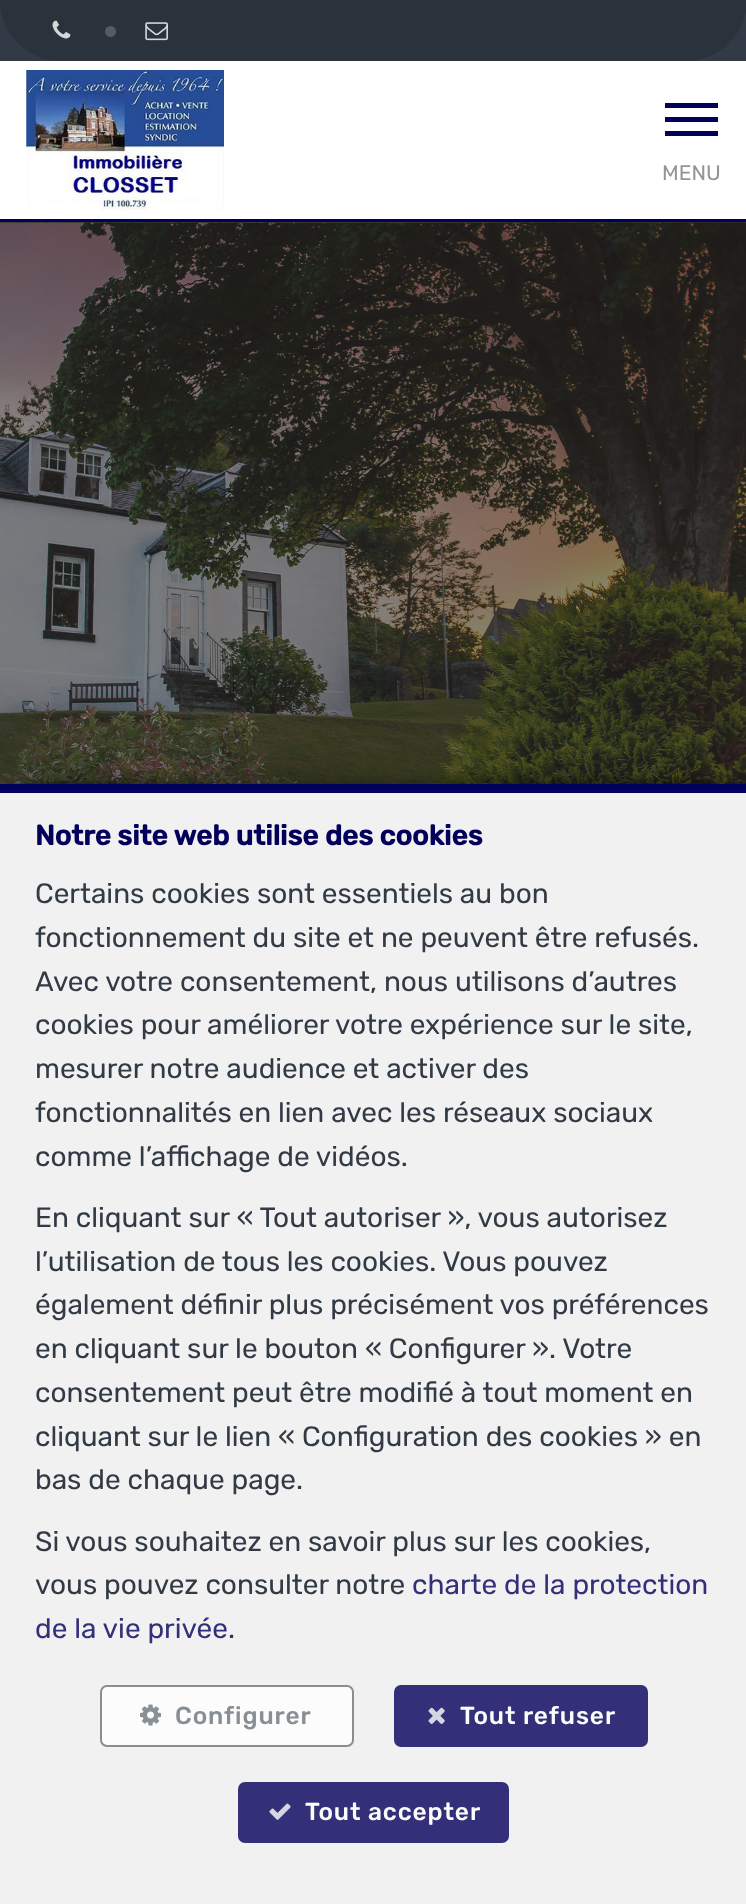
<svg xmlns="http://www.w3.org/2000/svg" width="746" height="1904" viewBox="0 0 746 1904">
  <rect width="100%" height="100%" fill="rgb(255,255,255)"/>
  <rect x="0" y="219" width="746" height="3" fill="rgb(3,0,91)"/>
  <rect x="0" y="0" width="746" height="61" fill="rgb(50,58,69)"/>
  <path d="M0 0H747C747 33.5 719.5 61 686 61H61C27.5 61 0 33.5 0 0Z" fill="rgb(42,50,60)"/>
  <image x="52" y="20" width="19" height="19" href="pic1.png"/>
  <circle cx="110.5" cy="31.5" r="5.5" fill="rgb(85,91,99)"/>
  <image x="145" y="22" width="23" height="19" href="pic2.png"/>
  <image x="26" y="70" width="198" height="140" href="pic3.png"/>
  <rect x="665" y="131" width="53" height="5" fill="rgb(3,0,91)"/>
  <rect x="665" y="103" width="53" height="5" fill="rgb(3,0,91)"/>
  <rect x="665" y="117" width="53" height="5" fill="rgb(3,0,91)"/>
  <text x="662" y="180" font-family="Rubik" font-size="21" fill="rgb(146,149,152)">MENU</text>
  <rect x="0" y="222" width="746" height="562" fill="rgb(51,51,51)"/>
  <image x="0" y="222" width="746" height="562" href="pic4.png"/>
  <rect x="0" y="795" width="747" height="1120" fill="rgba(0,0,0,0.9)" filter="blur(17.5px)"/>
  <rect x="0" y="791" width="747" height="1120" fill="rgba(0,0,0,0.9)" filter="blur(7px)"/>
  <rect x="0" y="793" width="746" height="1111" fill="rgb(241,241,241)"/>
  <rect x="0" y="784" width="746" height="9" fill="rgb(3,0,91)"/>
  <text x="35" y="845" font-family="Rubik" font-size="28" font-weight="bold" fill="rgb(3,0,91)">Notre site web utilise des cookies</text>
  <g font-family="Rubik" font-size="28" fill="rgb(50,58,69)">
    <text>
      <tspan x="35" y="903">Certains cookies sont essentiels au bon</tspan>
      <tspan x="35" y="947">fonctionnement du site et ne peuvent être refusés.</tspan>
      <tspan x="35" y="991">Avec votre consentement, nous utilisons d’autres</tspan>
      <tspan x="35" y="1034">cookies pour améliorer votre expérience sur le site,</tspan>
      <tspan x="35" y="1078">mesurer notre audience et activer des</tspan>
      <tspan x="35" y="1122">fonctionnalités en lien avec les réseaux sociaux</tspan>
      <tspan x="35" y="1166">comme l’affichage de vidéos.</tspan>
    </text>
    <text>
      <tspan x="35" y="1227">En cliquant sur « Tout autoriser », vous autorisez</tspan>
      <tspan x="35" y="1271">l’utilisation de tous les cookies. Vous pouvez</tspan>
      <tspan x="35" y="1314">également définir plus précisément vos préférences</tspan>
      <tspan x="35" y="1358">en cliquant sur le bouton « Configurer ». Votre</tspan>
      <tspan x="35" y="1402">consentement peut être modifié à tout moment en</tspan>
      <tspan x="35" y="1446">cliquant sur le lien « Configuration des cookies » en</tspan>
      <tspan x="35" y="1489">bas de chaque page.</tspan>
    </text>
    <text>
      <tspan x="35" y="1551">Si vous souhaitez en savoir plus sur les cookies,</tspan>
      <tspan x="35" y="1594">vous pouvez consulter notre</tspan>
    </text>
  </g>
  <g font-family="Rubik" font-size="28" fill="rgb(51,48,121)">
    <text x="412" y="1594">charte de la protection</text>
    <text x="35" y="1638">de la vie privée</text>
  </g>
  <text x="228" y="1638" font-family="Rubik" font-size="28" fill="rgb(50,58,69)">.</text>
  <rect x="101" y="1686" width="252" height="60" rx="6" fill="rgb(252,252,252)" stroke="rgb(135,142,148)" stroke-width="2"/>
  <image x="140" y="1704" width="21" height="22" href="pic5.png"/>
  <text x="175" y="1724" font-family="Rubik" font-size="24.5" font-weight="500" letter-spacing="0.9" fill="rgb(135,142,148)">Configurer</text>
  <rect x="394" y="1685" width="254" height="62" rx="7" fill="rgb(51,48,121)"/>
  <image x="428" y="1707" width="17" height="17" href="pic6.png"/>
  <text x="460" y="1724" font-family="Rubik" font-size="24.5" font-weight="500" letter-spacing="0.9" fill="rgb(252,252,252)">Tout refuser</text>
  <rect x="238" y="1782" width="271" height="61" rx="7" fill="rgb(51,48,121)"/>
  <image x="269" y="1803" width="22" height="17" href="pic7.png"/>
  <text x="305" y="1820" font-family="Rubik" font-size="24.5" font-weight="500" letter-spacing="0.9" fill="rgb(252,252,252)">Tout accepter</text>
</svg>
